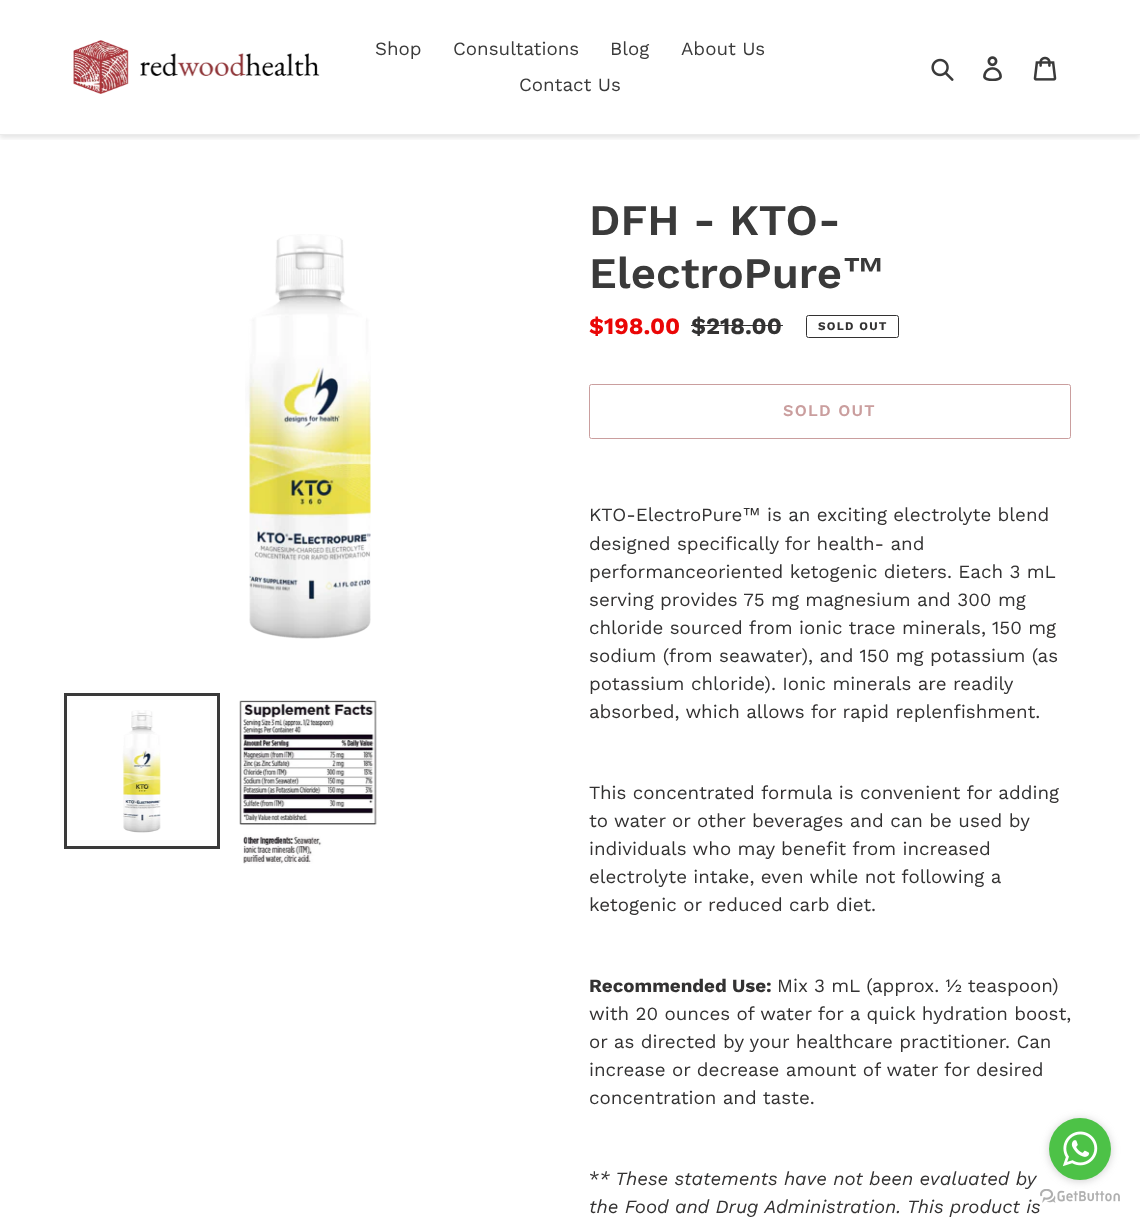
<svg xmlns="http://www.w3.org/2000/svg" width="1140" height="1222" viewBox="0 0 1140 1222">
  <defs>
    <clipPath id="clip1"><rect x="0" y="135" width="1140" height="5"/></clipPath>
  </defs>
  <rect width="100%" height="100%" fill="rgb(255,255,255)"/>
  <g clip-path="url(#clip1)">
    <rect x="0" y="3" width="1140" height="135" fill="rgba(0,0,0,0.1)" filter="blur(2.5px)"/>
  </g>
  <rect x="0" y="134" width="1140" height="1" fill="rgb(235,235,235)"/>
  <image x="73" y="40" width="247" height="54" href="pic1.png"/>
  <g font-family="Work Sans" font-size="18.75" fill="rgb(58,58,58)">
    <text x="375" y="55">Shop</text>
    <text x="453" y="55">Consultations</text>
    <text x="610" y="55">Blog</text>
    <text x="681" y="55">About Us</text>
    <text x="519" y="91">Contact Us</text>
  </g>
  <image x="931" y="58" width="23" height="23" href="pic2.png"/>
  <image x="983" y="56" width="19" height="25" href="pic3.png"/>
  <image x="1033" y="56" width="24" height="25" href="pic4.png"/>
  <image x="245" y="234" width="126" height="405" href="pic5.png"/>
  <rect x="65.5" y="694.5" width="153" height="153" fill="none" stroke="rgb(58,58,58)" stroke-width="3"/>
  <image x="122" y="710" width="39" height="123" href="pic6.png"/>
  <image x="239" y="700" width="138" height="164" href="pic7.png"/>
  <g font-family="Work Sans" font-size="43.75" font-weight="600" fill="rgb(58,58,58)">
    <text>
      <tspan x="589" y="235">DFH - KTO-</tspan>
      <tspan x="589" y="288">ElectroPure</tspan>
    </text>
  </g>
  <text x="842" y="288" font-family="Liberation Sans" font-size="43.75" font-weight="bold" fill="rgb(58,58,58)">™</text>
  <text x="589" y="334" font-family="Work Sans" font-size="23.5" font-weight="bold" fill="rgb(234,6,6)">$198.00</text>
  <text x="691" y="334" font-family="Work Sans" font-size="23.5" font-weight="bold" fill="rgb(51,50,50)">$218.00</text>
  <rect x="691" y="325" width="92" height="1" fill="rgb(51,50,50)"/>
  <rect x="806.5" y="315.5" width="92" height="22" rx="2" fill="none" stroke="rgb(51,50,50)"/>
  <text x="818" y="330" font-family="Work Sans" font-size="11.75" font-weight="bold" letter-spacing="1.25" fill="rgb(51,50,50)">SOLD OUT</text>
  <rect x="589.5" y="384.5" width="481" height="54" rx="2" fill="none" stroke="rgb(202,158,158)"/>
  <text x="783" y="416" font-family="Work Sans" font-size="16.25" font-weight="600" letter-spacing="1.25" fill="rgb(202,158,158)">SOLD OUT</text>
  <text x="589" y="521" font-family="Work Sans" font-size="18.75" fill="rgb(51,50,50)">KTO-ElectroPure</text>
  <text x="742" y="521" font-family="Liberation Sans" font-size="18.75" fill="rgb(51,50,50)">™</text>
  <g font-family="Work Sans" font-size="18.75" fill="rgb(51,50,50)">
    <text x="767" y="521">is an exciting electrolyte blend</text>
    <text>
      <tspan x="589" y="550">designed specifically for health- and</tspan>
      <tspan x="589" y="578">performanceoriented ketogenic dieters. Each 3 mL</tspan>
      <tspan x="589" y="606">serving provides 75 mg magnesium and 300 mg</tspan>
      <tspan x="589" y="634">chloride sourced from ionic trace minerals, 150 mg</tspan>
      <tspan x="589" y="662">sodium (from seawater), and 150 mg potassium (as</tspan>
      <tspan x="589" y="690">potassium chloride). Ionic minerals are readily</tspan>
      <tspan x="589" y="718">absorbed, which allows for rapid replenfishment.</tspan>
    </text>
    <text>
      <tspan x="589" y="799">This concentrated formula is convenient for adding</tspan>
      <tspan x="589" y="827">to water or other beverages and can be used by</tspan>
      <tspan x="589" y="855">individuals who may benefit from increased</tspan>
      <tspan x="589" y="883">electrolyte intake, even while not following a</tspan>
      <tspan x="589" y="911">ketogenic or reduced carb diet.</tspan>
    </text>
  </g>
  <text x="589" y="992" font-family="Work Sans" font-size="18.75" font-weight="bold" fill="rgb(51,50,50)">Recommended Use:</text>
  <g font-family="Work Sans" font-size="18.75" fill="rgb(51,50,50)">
    <text x="777" y="992">Mix 3 mL (approx. ½ teaspoon)</text>
    <text>
      <tspan x="589" y="1020">with 20 ounces of water for a quick hydration boost,</tspan>
      <tspan x="589" y="1048">or as directed by your healthcare practitioner. Can</tspan>
      <tspan x="589" y="1076">increase or decrease amount of water for desired</tspan>
      <tspan x="589" y="1104">concentration and taste.</tspan>
    </text>
    <text x="589" y="1185">*</text>
  </g>
  <g font-family="Work Sans" font-size="18.75" font-style="italic" fill="rgb(51,50,50)">
    <text x="599" y="1185">* These statements have not been evaluated by</text>
    <text x="589" y="1213">the Food and Drug Administration. This product is</text>
  </g>
  <image x="1040" y="1189" width="80" height="14" href="pic9.png"/>
  <rect x="1049" y="1119" width="62" height="62" rx="31" fill="rgba(136,136,136,0.4)" filter="blur(4.5px)"/>
  <circle cx="1080" cy="1149" r="31" fill="rgb(77,194,71)"/>
  <image x="1062" y="1131" width="36" height="36" href="pic8.png"/>
</svg>
